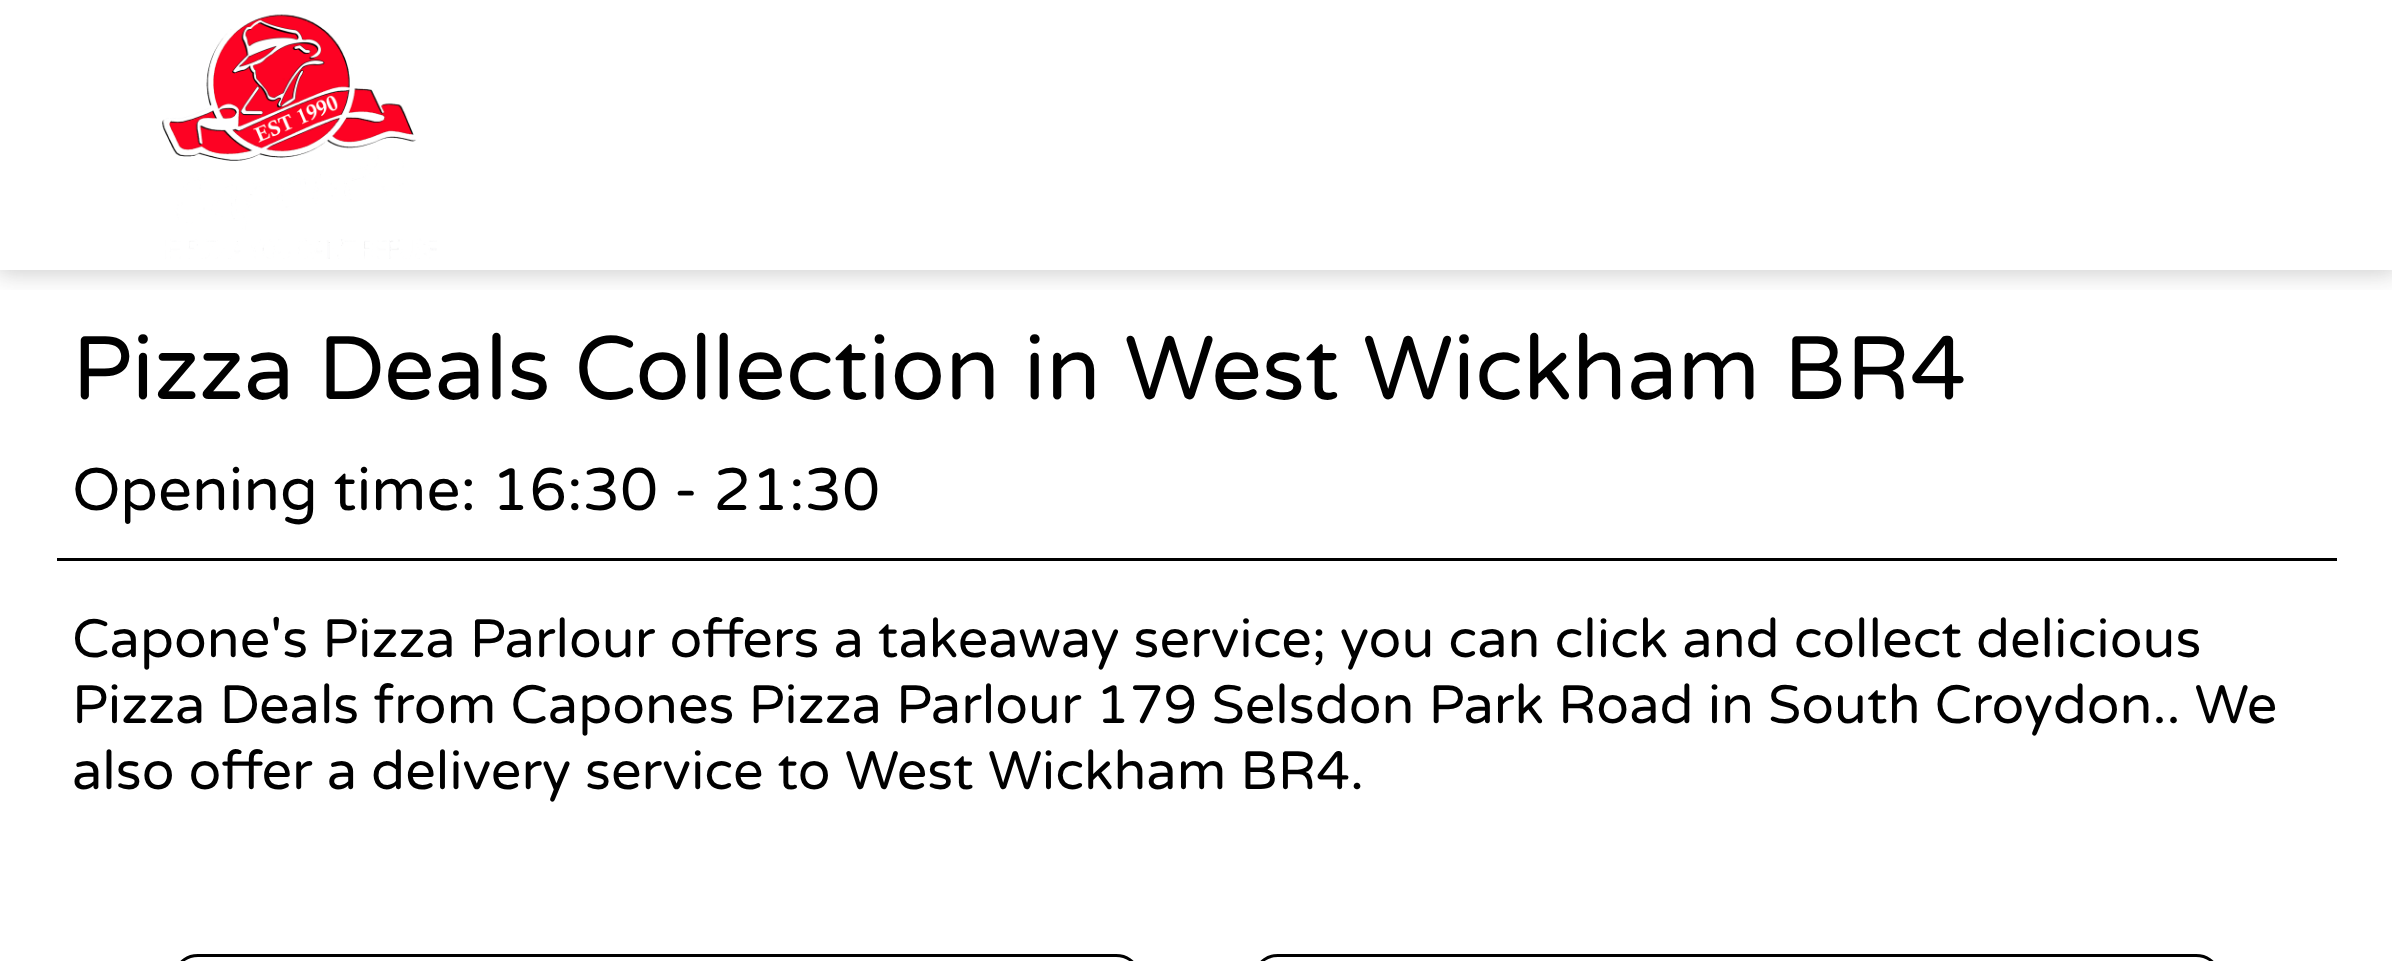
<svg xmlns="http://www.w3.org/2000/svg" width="2392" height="961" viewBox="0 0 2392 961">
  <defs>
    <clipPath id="clip1"><rect x="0" y="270" width="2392" height="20"/></clipPath>
  </defs>
  <rect width="100%" height="100%" fill="rgb(255,255,255)"/>
  <g clip-path="url(#clip1)">
    <rect x="-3" y="-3" width="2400" height="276" fill="rgba(53,53,53,0.25)" filter="blur(12px)"/>
  </g>
  <image x="162" y="14" width="275" height="245" href="pic1.png"/>
  <text x="72" y="399" font-family="Varela Round" font-size="90" fill="rgb(0,0,0)">Pizza Deals Collection in West Wickham BR4</text>
  <rect x="57" y="558" width="2280" height="3" fill="rgb(0,0,0)"/>
  <text x="72" y="510" font-family="Varela Round" font-size="60" fill="rgb(0,0,0)">Opening time: 16:30 - 21:30</text>
  <g font-family="Varela Round" font-size="54" fill="rgb(0,0,0)">
    <text>
      <tspan x="72" y="657">Capone's Pizza Parlour offers a takeaway service; you can click and collect delicious</tspan>
      <tspan x="72" y="723">Pizza Deals from Capones Pizza Parlour 179 Selsdon Park Road in South Croydon.. We</tspan>
      <tspan x="72" y="789">also offer a delivery service to West Wickham BR4.</tspan>
    </text>
  </g>
  <rect x="178.5" y="955.5" width="957" height="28" rx="19.5" fill="none" stroke="rgb(0,0,0)" stroke-width="3"/>
  <rect x="1258.5" y="955.5" width="957" height="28" rx="19.5" fill="none" stroke="rgb(0,0,0)" stroke-width="3"/>
</svg>
